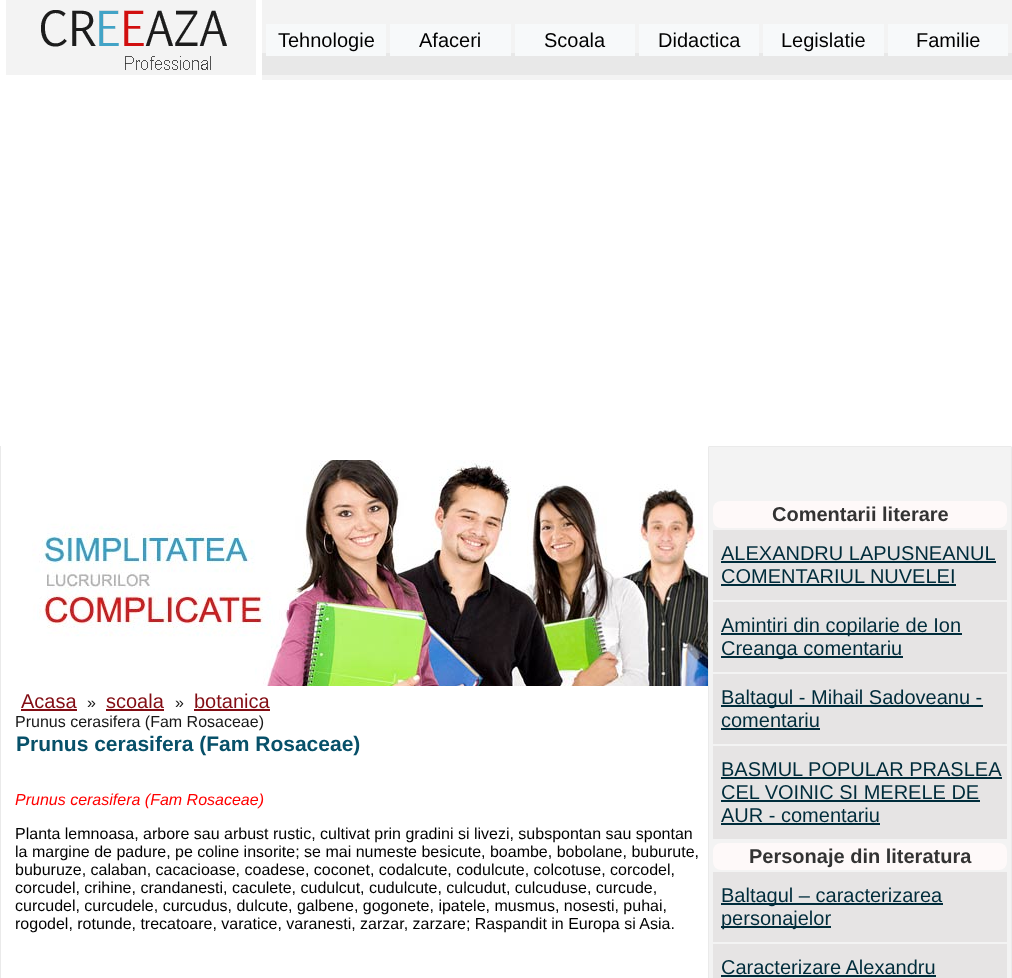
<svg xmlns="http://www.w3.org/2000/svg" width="1012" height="978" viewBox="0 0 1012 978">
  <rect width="100%" height="100%" fill="rgb(243,243,243)"/>
  <rect x="0" y="0" width="1012" height="446" fill="rgb(255,255,255)"/>
  <image x="6" y="0" width="250" height="75" href="pic1.png"/>
  <image x="262" y="0" width="750" height="80" href="pic2.png"/>
  <rect x="266" y="24" width="120" height="32" fill="rgb(247,249,250)"/>
  <text x="278" y="47" font-family="Liberation Sans" font-size="20" fill="rgb(0,0,0)">Tehnologie</text>
  <rect x="390" y="24" width="121" height="32" fill="rgb(247,249,250)"/>
  <text x="419" y="47" font-family="Liberation Sans" font-size="20" fill="rgb(0,0,0)">Afaceri</text>
  <rect x="515" y="24" width="120" height="32" fill="rgb(247,249,250)"/>
  <text x="544" y="47" font-family="Liberation Sans" font-size="20" fill="rgb(0,0,0)">Scoala</text>
  <rect x="639" y="24" width="120" height="32" fill="rgb(247,249,250)"/>
  <text x="658" y="47" font-family="Liberation Sans" font-size="20" fill="rgb(0,0,0)">Didactica</text>
  <rect x="763" y="24" width="121" height="32" fill="rgb(247,249,250)"/>
  <text x="781" y="47" font-family="Liberation Sans" font-size="20" fill="rgb(0,0,0)">Legislatie</text>
  <rect x="888" y="24" width="120" height="32" fill="rgb(247,249,250)"/>
  <text x="916" y="47" font-family="Liberation Sans" font-size="20" fill="rgb(0,0,0)">Familie</text>
  <rect x="1" y="446" width="707" height="532" fill="rgb(255,255,255)"/>
  <rect x="0" y="446" width="1" height="532" fill="rgb(234,234,234)"/>
  <image x="32" y="460" width="676" height="226" href="pic3.png"/>
  <text x="21" y="708" font-family="Liberation Sans" font-size="20" fill="rgb(131,13,20)">Acasa</text>
  <rect x="21" y="709" width="56" height="2" fill="rgb(131,13,20)"/>
  <text x="87" y="708" font-family="Liberation Sans" font-size="16" fill="rgb(23,23,23)">»</text>
  <text x="106" y="708" font-family="Liberation Sans" font-size="20" fill="rgb(131,13,20)">scoala</text>
  <rect x="106" y="709" width="58" height="2" fill="rgb(131,13,20)"/>
  <text x="175" y="708" font-family="Liberation Sans" font-size="16" fill="rgb(23,23,23)">»</text>
  <text x="194" y="708" font-family="Liberation Sans" font-size="20" fill="rgb(131,13,20)">botanica</text>
  <rect x="194" y="709" width="76" height="2" fill="rgb(131,13,20)"/>
  <text x="15" y="727" font-family="Liberation Sans" font-size="16" fill="rgb(23,23,23)">Prunus cerasifera (Fam Rosaceae)</text>
  <text x="16" y="751" font-family="Liberation Sans" font-size="21" font-weight="bold" fill="rgb(7,80,105)">Prunus cerasifera (Fam Rosaceae)</text>
  <text x="15" y="805" font-family="Liberation Sans" font-size="16" font-style="italic" fill="rgb(255,0,0)">Prunus cerasifera (Fam Rosaceae)</text>
  <g font-family="Liberation Sans" font-size="16" fill="rgb(0,0,0)">
    <text>
      <tspan x="15" y="839">Planta lemnoasa, arbore sau arbust rustic, cultivat prin gradini si livezi, subspontan sau spontan</tspan>
      <tspan x="15" y="857">la margine de padure, pe coline insorite; se mai numeste besicute, boambe, bobolane, buburute,</tspan>
      <tspan x="15" y="875">buburuze, calaban, cacacioase, coadese, coconet, codalcute, codulcute, colcotuse, corcodel,</tspan>
      <tspan x="15" y="893">corcudel, crihine, crandanesti, caculete, cudulcut, cudulcute, culcudut, culcuduse, curcude,</tspan>
      <tspan x="15" y="911">curcudel, curcudele, curcudus, dulcute, galbene, gogonete, ipatele, musmus, nosesti, puhai,</tspan>
      <tspan x="15" y="929">rogodel, rotunde, trecatoare, varatice, varanesti, zarzar, zarzare; Raspandit in Europa si Asia.</tspan>
    </text>
  </g>
  <rect x="709" y="446" width="302" height="1" fill="rgb(234,234,234)"/>
  <rect x="1011" y="447" width="1" height="531" fill="rgb(234,234,234)"/>
  <rect x="708" y="447" width="1" height="531" fill="rgb(234,234,234)"/>
  <rect x="713" y="501" width="294" height="27" rx="8" fill="rgb(254,249,249)"/>
  <text x="772" y="521" font-family="Liberation Sans" font-size="20" font-weight="bold" fill="rgb(51,51,51)">Comentarii literare</text>
  <rect x="713" y="530" width="294" height="70" fill="rgb(230,228,228)"/>
  <text x="721" y="560" font-family="Liberation Sans" font-size="20" fill="rgb(0,44,59)">ALEXANDRU LAPUSNEANUL</text>
  <rect x="721" y="561" width="275" height="2" fill="rgb(0,44,59)"/>
  <text x="721" y="583" font-family="Liberation Sans" font-size="20" fill="rgb(0,44,59)">COMENTARIUL NUVELEI</text>
  <rect x="721" y="584" width="235" height="2" fill="rgb(0,44,59)"/>
  <rect x="713" y="602" width="294" height="70" fill="rgb(230,228,228)"/>
  <rect x="721" y="633" width="241" height="2" fill="rgb(0,44,59)"/>
  <text x="721" y="632" font-family="Liberation Sans" font-size="20" fill="rgb(0,44,59)">Amintiri din copilarie de Ion</text>
  <rect x="721" y="656" width="182" height="2" fill="rgb(0,44,59)"/>
  <text x="721" y="655" font-family="Liberation Sans" font-size="20" fill="rgb(0,44,59)">Creanga comentariu</text>
  <rect x="713" y="674" width="294" height="70" fill="rgb(230,228,228)"/>
  <rect x="721" y="705" width="262" height="2" fill="rgb(0,44,59)"/>
  <g font-family="Liberation Sans" font-size="20" fill="rgb(0,44,59)">
    <text>
      <tspan x="721" y="704">Baltagul - Mihail Sadoveanu -</tspan>
      <tspan x="721" y="727">comentariu</tspan>
    </text>
  </g>
  <rect x="721" y="728" width="99" height="2" fill="rgb(0,44,59)"/>
  <rect x="713" y="746" width="294" height="93" fill="rgb(230,228,228)"/>
  <text x="721" y="776" font-family="Liberation Sans" font-size="20" fill="rgb(0,44,59)">BASMUL POPULAR PRASLEA</text>
  <rect x="721" y="777" width="281" height="2" fill="rgb(0,44,59)"/>
  <text x="721" y="799" font-family="Liberation Sans" font-size="20" fill="rgb(0,44,59)">CEL VOINIC SI MERELE DE</text>
  <rect x="721" y="800" width="259" height="2" fill="rgb(0,44,59)"/>
  <text x="721" y="822" font-family="Liberation Sans" font-size="20" fill="rgb(0,44,59)">AUR - comentariu</text>
  <rect x="721" y="823" width="159" height="2" fill="rgb(0,44,59)"/>
  <rect x="713" y="843" width="294" height="27" rx="8" fill="rgb(254,249,249)"/>
  <text x="749" y="863" font-family="Liberation Sans" font-size="20" font-weight="bold" fill="rgb(51,51,51)">Personaje din literatura</text>
  <rect x="713" y="872" width="294" height="70" fill="rgb(230,228,228)"/>
  <rect x="721" y="903" width="222" height="2" fill="rgb(0,44,59)"/>
  <text x="721" y="902" font-family="Liberation Sans" font-size="20" fill="rgb(0,44,59)">Baltagul – caracterizarea</text>
  <rect x="721" y="926" width="110" height="2" fill="rgb(0,44,59)"/>
  <text x="721" y="925" font-family="Liberation Sans" font-size="20" fill="rgb(0,44,59)">personajelor</text>
  <rect x="713" y="944" width="294" height="34" fill="rgb(230,228,228)"/>
  <text x="721" y="974" font-family="Liberation Sans" font-size="20" fill="rgb(0,44,59)">Caracterizare Alexandru</text>
  <rect x="721" y="975" width="215" height="2" fill="rgb(0,44,59)"/>
</svg>
